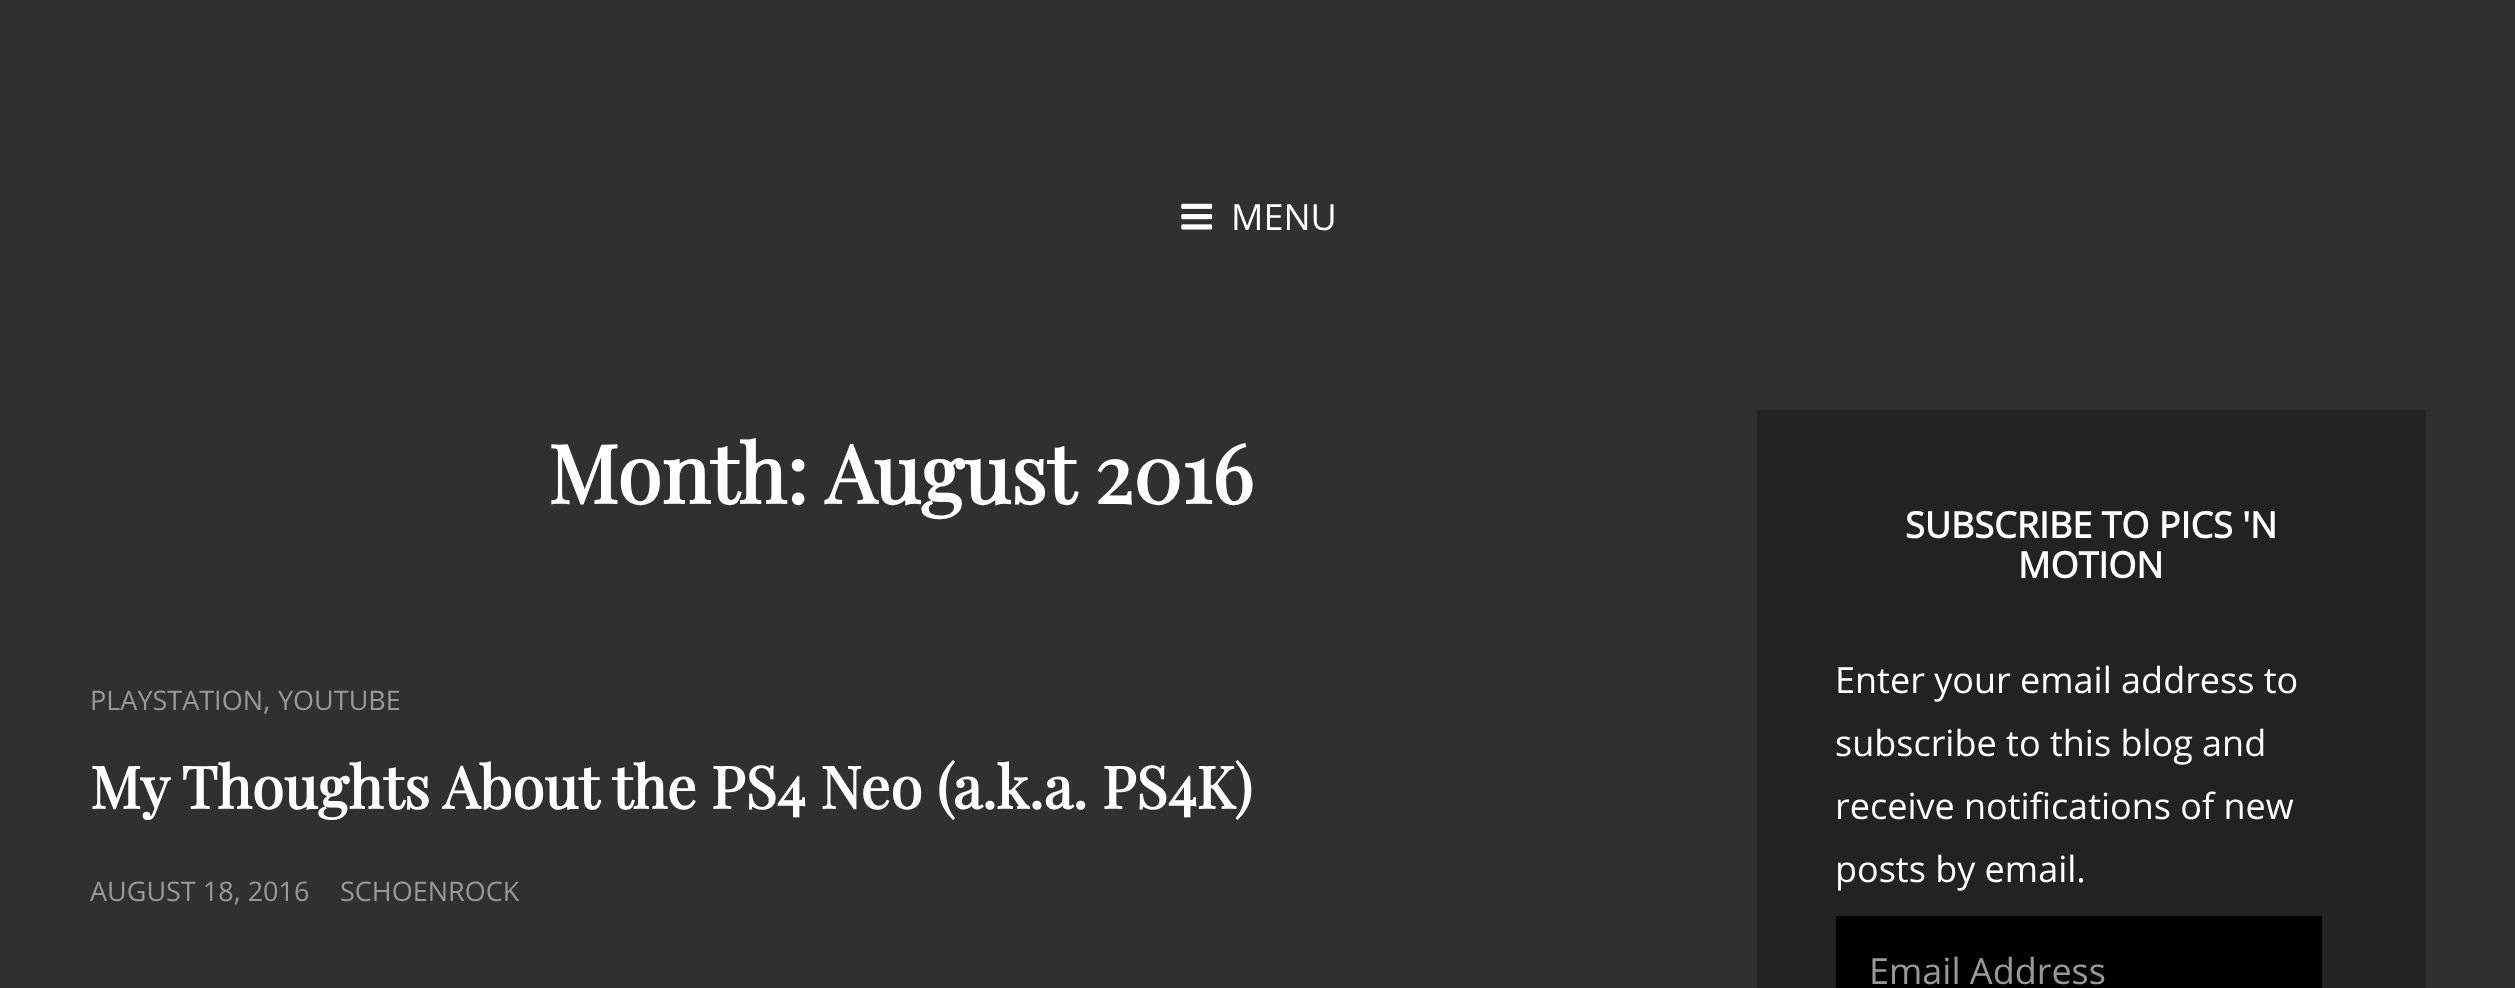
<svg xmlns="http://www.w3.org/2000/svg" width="2515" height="988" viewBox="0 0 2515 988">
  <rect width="100%" height="100%" fill="rgb(48,48,48)"/>
  <image x="1181" y="203" width="32" height="27" href="pic1.png"/>
  <text x="1231" y="230" font-family="Open Sans" font-size="36" fill="rgb(255,255,255)">MENU</text>
  <g font-family="Playfair Display" font-size="81" font-weight="bold" fill="rgb(255,255,255)">
    <text x="548" y="504">Month:</text>
    <text x="825" y="504">August 2016</text>
  </g>
  <text x="90" y="710" font-family="Open Sans" font-size="27" fill="rgb(153,153,153)">PLAYSTATION</text>
  <text x="263" y="710" font-family="Open Sans" font-size="29" fill="rgb(153,153,153)">,</text>
  <text x="278" y="710" font-family="Open Sans" font-size="27" fill="rgb(153,153,153)">YOUTUBE</text>
  <text x="90" y="809" font-family="Playfair Display" font-size="58.5" font-weight="bold" fill="rgb(255,255,255)">My Thoughts About the PS4 Neo (a.k.a. PS4K)</text>
  <g font-family="Open Sans" font-size="27" fill="rgb(153,153,153)">
    <text x="90" y="901">AUGUST 18, 2016</text>
    <text x="340" y="901">SCHOENROCK</text>
  </g>
  <rect x="1757" y="410" width="669" height="578" fill="rgb(34,34,34)"/>
  <g font-family="Open Sans" font-size="36" font-weight="bold" fill="rgb(255,255,255)">
    <text x="1905" y="538">SUBSCRIBE TO PICS 'N</text>
    <text x="2018" y="578">MOTION</text>
  </g>
  <g font-family="Open Sans" font-size="36" fill="rgb(255,255,255)">
    <text>
      <tspan x="1835" y="693">Enter your email address to</tspan>
      <tspan x="1835" y="756">subscribe to this blog and</tspan>
      <tspan x="1835" y="819">receive notifications of new</tspan>
      <tspan x="1835" y="882">posts by email.</tspan>
    </text>
  </g>
  <rect x="1836" y="916" width="486" height="72" fill="rgb(0,0,0)"/>
  <text x="1869" y="984" font-family="Open Sans" font-size="36" fill="rgb(153,153,153)">Email Address</text>
</svg>
